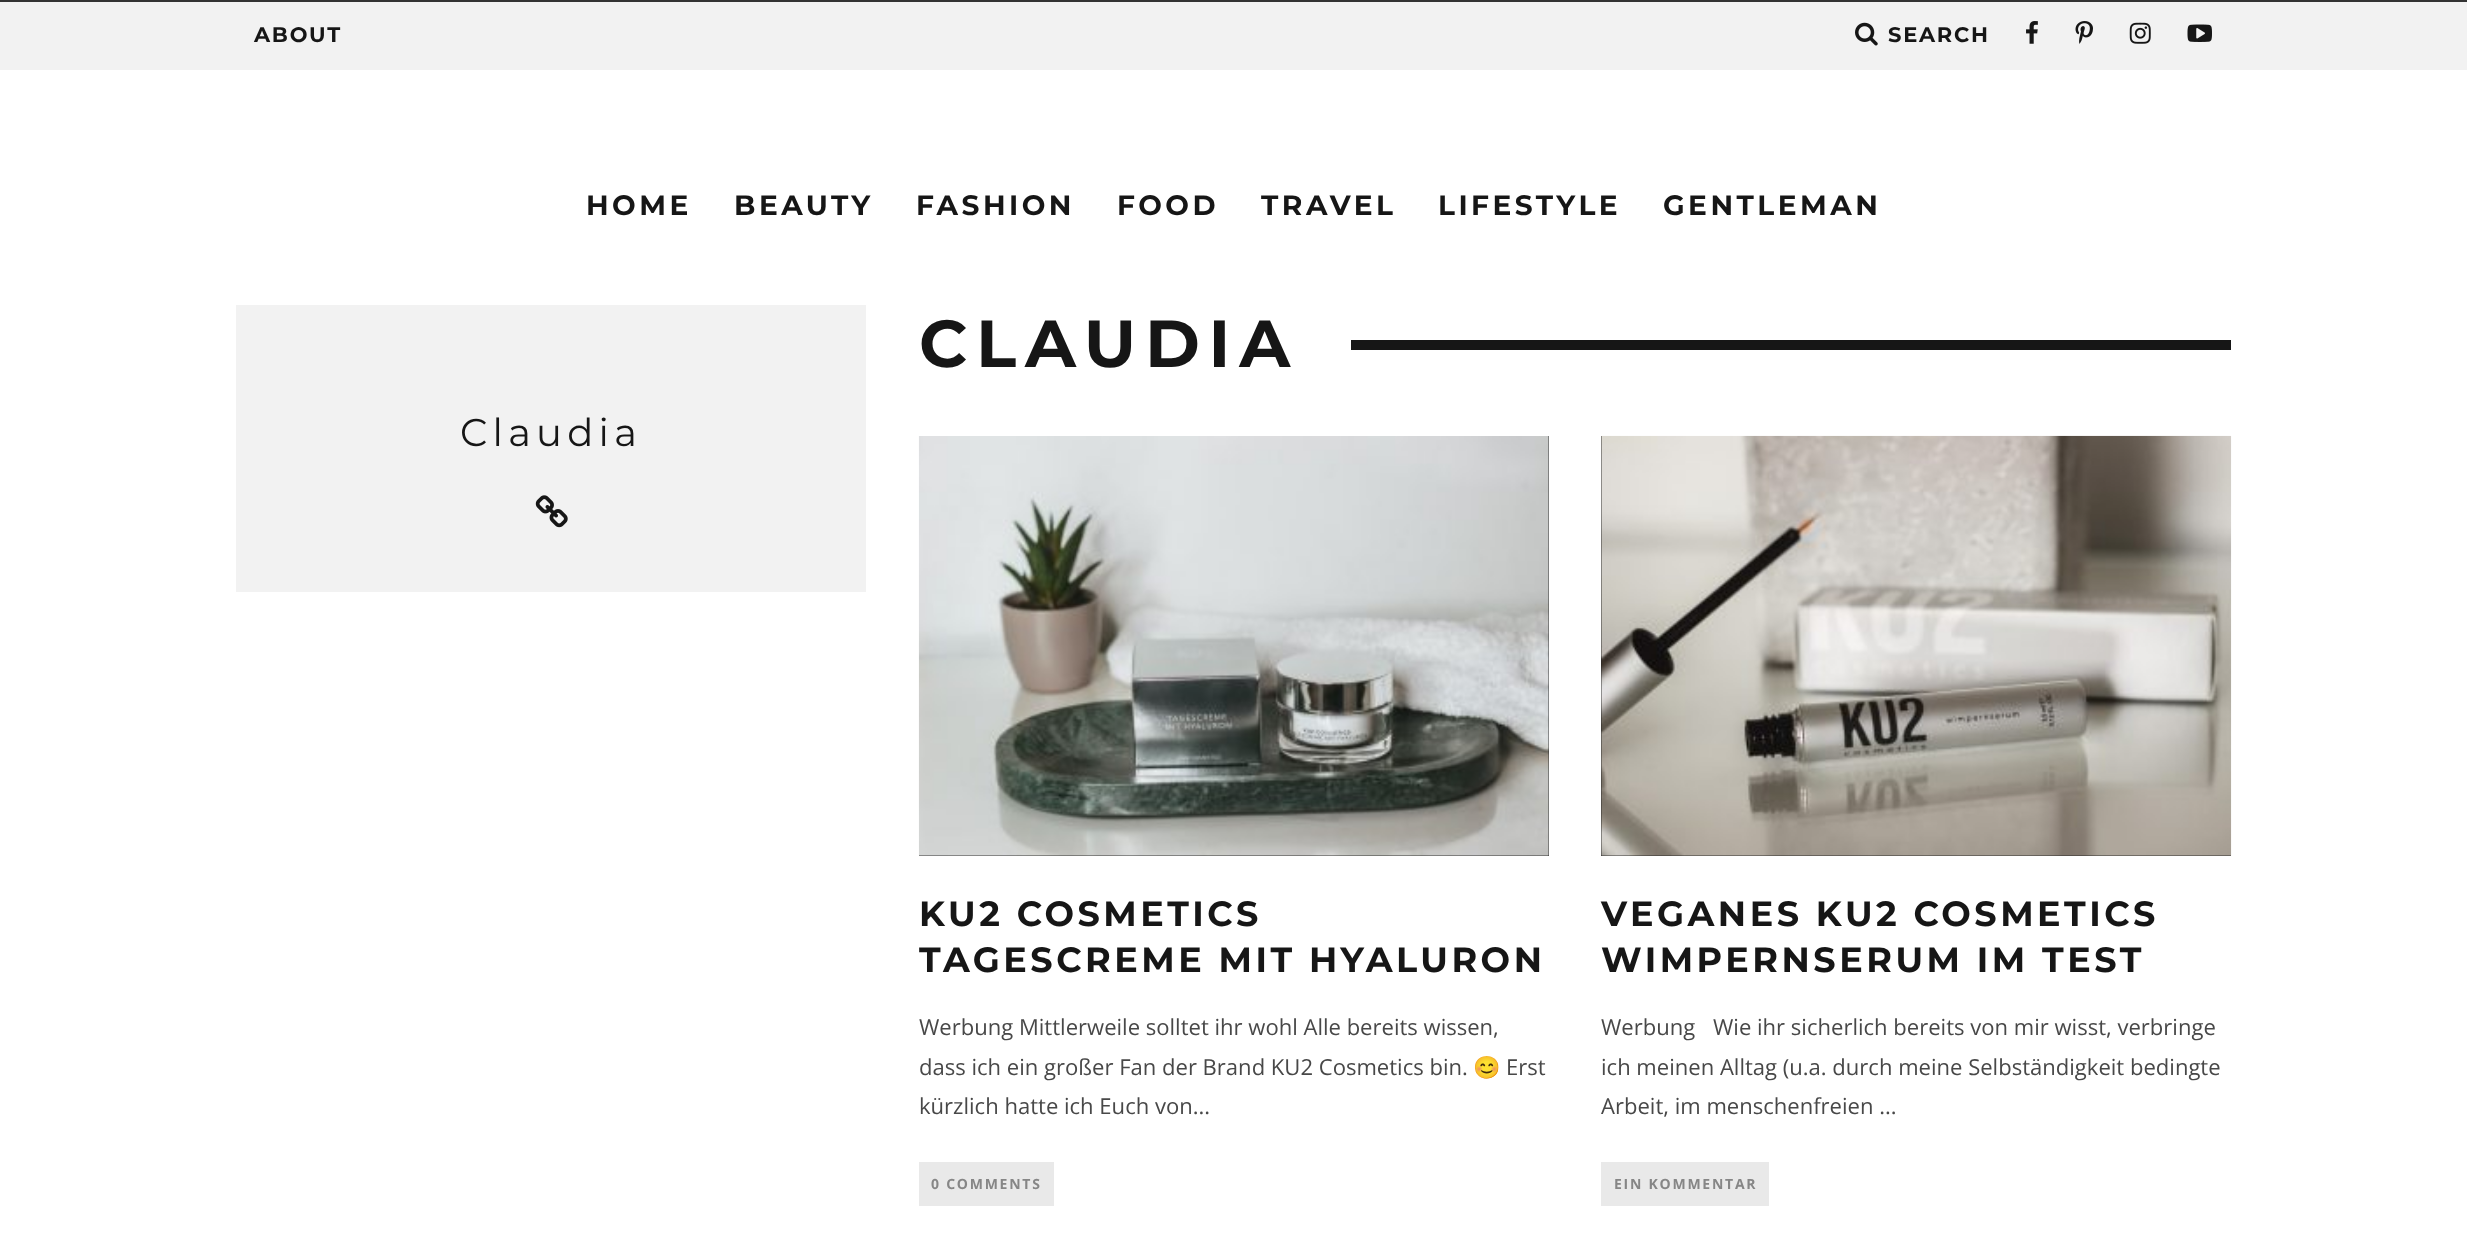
<svg xmlns="http://www.w3.org/2000/svg" width="2467" height="1240" viewBox="0 0 2467 1240">
  <rect width="100%" height="100%" fill="rgb(255,255,255)"/>
  <rect x="0" y="0" width="2467" height="2" fill="rgb(51,51,51)"/>
  <rect x="0" y="2" width="2467" height="68" fill="rgb(242,242,242)"/>
  <text x="254" y="42" font-family="Montserrat" font-size="21" font-weight="bold" letter-spacing="1.75" fill="rgb(22,22,22)">ABOUT</text>
  <image x="1855" y="22" width="23" height="24" href="pic1.png"/>
  <text x="1888" y="42" font-family="Montserrat" font-size="21" font-weight="bold" letter-spacing="1.75" fill="rgb(22,22,22)">SEARCH</text>
  <image x="2026" y="21" width="12" height="23" href="pic2.png"/>
  <image x="2075" y="21" width="18" height="23" href="pic3.png"/>
  <image x="2129" y="22" width="22" height="22" href="pic4.png"/>
  <image x="2187" y="24" width="25" height="18" href="pic5.png"/>
  <g font-family="Montserrat" font-size="28" font-weight="bold" letter-spacing="3.5" fill="rgb(22,22,22)">
    <text x="586" y="215">HOME</text>
    <text x="734" y="215">BEAUTY</text>
    <text x="916" y="215">FASHION</text>
    <text x="1117" y="215">FOOD</text>
    <text x="1261" y="215">TRAVEL</text>
    <text x="1438" y="215">LIFESTYLE</text>
    <text x="1663" y="215">GENTLEMAN</text>
  </g>
  <rect x="236" y="305" width="630" height="287" fill="rgb(242,242,242)"/>
  <text x="460" y="446" font-family="Montserrat" font-size="38.5" letter-spacing="5.25" fill="rgb(22,22,22)">Claudia</text>
  <image x="535" y="495" width="33" height="33" href="pic6.png"/>
  <text x="919" y="367" font-family="Montserrat" font-size="66.5" font-weight="bold" letter-spacing="8.75" fill="rgb(22,22,22)">CLAUDIA</text>
  <rect x="1351" y="340" width="880" height="10" fill="rgb(22,22,22)"/>
  <rect x="919" y="436" width="630" height="420" fill="rgb(34,34,34)"/>
  <image x="918" y="436" width="631" height="420" href="pic7.png"/>
  <g font-family="Montserrat" font-size="35" font-weight="bold" letter-spacing="3.5" fill="rgb(22,22,22)">
    <text>
      <tspan x="919" y="926">KU2 COSMETICS</tspan>
      <tspan x="919" y="972">TAGESCREME MIT HYALURON</tspan>
    </text>
  </g>
  <g font-family="Open Sans" font-size="22.05" fill="rgb(72,72,72)">
    <text>
      <tspan x="919" y="1035">Werbung Mittlerweile solltet ihr wohl Alle bereits wissen,</tspan>
      <tspan x="919" y="1075">dass ich ein großer Fan der Brand KU2 Cosmetics bin.</tspan>
    </text>
  </g>
  <text x="1473" y="1075" font-family="Noto Color Emoji" font-size="22.05" fill="rgb(72,72,72)">😊</text>
  <g font-family="Open Sans" font-size="22.05" fill="rgb(72,72,72)">
    <text x="1506" y="1075">Erst</text>
    <text x="919" y="1114">kürzlich hatte ich Euch von...</text>
  </g>
  <rect x="919" y="1162" width="135" height="44" fill="rgb(233,233,233)"/>
  <text x="931" y="1189" font-family="Open Sans" font-size="14" font-weight="bold" letter-spacing="1.75" fill="rgb(134,134,134)">0 COMMENTS</text>
  <rect x="1601" y="436" width="630" height="420" fill="rgb(34,34,34)"/>
  <image x="1601" y="435" width="631" height="421" href="pic8.png"/>
  <g font-family="Montserrat" font-size="35" font-weight="bold" letter-spacing="3.5" fill="rgb(22,22,22)">
    <text>
      <tspan x="1601" y="926">VEGANES KU2 COSMETICS</tspan>
      <tspan x="1601" y="972">WIMPERNSERUM IM TEST</tspan>
    </text>
  </g>
  <g font-family="Open Sans" font-size="22.05" fill="rgb(72,72,72)">
    <text x="1601" y="1035">Werbung</text>
    <text x="1713" y="1035">Wie ihr sicherlich bereits von mir wisst, verbringe</text>
    <text>
      <tspan x="1601" y="1075">ich meinen Alltag (u.a. durch meine Selbständigkeit bedingte</tspan>
      <tspan x="1601" y="1114">Arbeit, im menschenfreien ...</tspan>
    </text>
  </g>
  <rect x="1601" y="1162" width="168" height="44" fill="rgb(233,233,233)"/>
  <text x="1614" y="1189" font-family="Open Sans" font-size="14" font-weight="bold" letter-spacing="1.75" fill="rgb(134,134,134)">EIN KOMMENTAR</text>
</svg>
